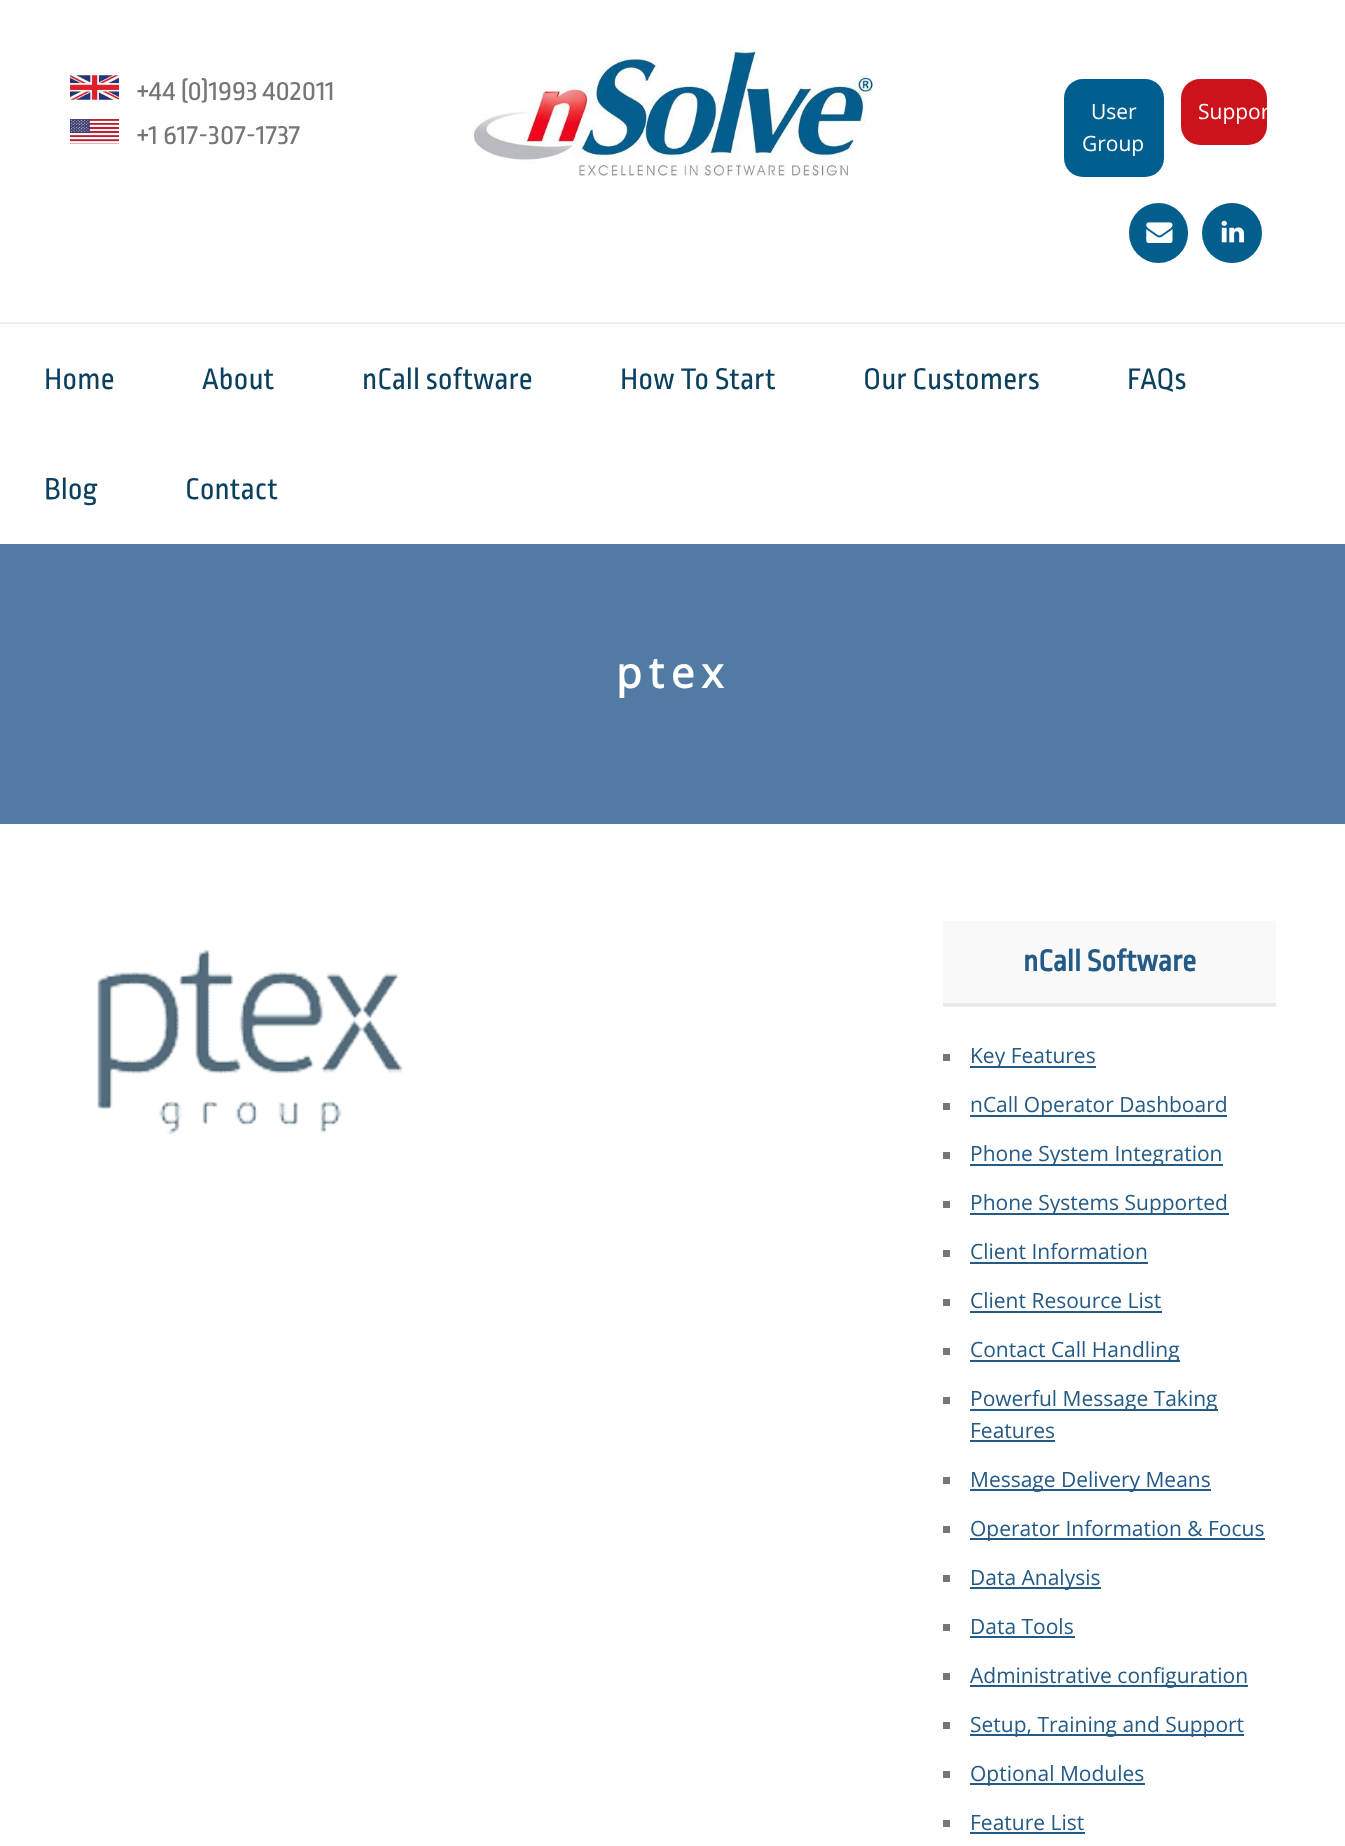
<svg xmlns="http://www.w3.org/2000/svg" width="1345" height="1846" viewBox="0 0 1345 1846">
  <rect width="100%" height="100%" fill="rgb(255,255,255)"/>
  <rect x="943" y="1006" width="333" height="1" fill="rgb(235,239,243)"/>
  <image x="70" y="75" width="49" height="25" href="pic1.png"/>
  <text x="137" y="100" font-family="Ropa Sans" font-size="29.5" fill="rgb(118,118,118)">+44 (0)1993 402011</text>
  <image x="70" y="119" width="49" height="25" href="pic2.png"/>
  <text x="137" y="144" font-family="Ropa Sans" font-size="29.5" fill="rgb(118,118,118)">+1 617-307-1737</text>
  <image x="474" y="46" width="399" height="130" href="pic3.png"/>
  <rect x="1064" y="79" width="100" height="98" rx="19" fill="rgb(0,95,143)"/>
  <g font-family="Open Sans" font-size="21" fill="rgb(255,255,255)">
    <text x="1091" y="119">User</text>
    <text x="1082" y="151">Group</text>
  </g>
  <rect x="1181" y="79" width="86" height="66" rx="19" fill="rgb(204,19,27)"/>
  <text x="1198" y="119" font-family="Open Sans" font-size="21" fill="rgb(255,255,255)">Suppor</text>
  <rect x="1129" y="203" width="59" height="60" rx="29.5" fill="rgb(2,94,141)"/>
  <image x="1146" y="222" width="27" height="21" href="pic4.png"/>
  <circle cx="1232" cy="233" r="30" fill="rgb(2,94,141)"/>
  <image x="1221" y="220" width="23" height="23" href="pic5.png"/>
  <rect x="0" y="322" width="1345" height="2" fill="rgb(232,241,245)"/>
  <g font-family="Ropa Sans" font-size="31.5" fill="rgb(11,65,95)">
    <text x="44" y="389">Home</text>
    <text x="202" y="389">About</text>
    <text x="362" y="389">nCall software</text>
    <text x="620" y="389">How To Start</text>
    <text x="863" y="389">Our Customers</text>
    <text x="1127" y="389">FAQs</text>
    <text x="44" y="499">Blog</text>
    <text x="185" y="499">Contact</text>
  </g>
  <rect x="0" y="544" width="1345" height="280" fill="rgb(81,123,162)"/>
  <text x="616" y="688" font-family="Open Sans" font-size="42" font-weight="bold" letter-spacing="7" fill="rgb(255,255,255)">ptex</text>
  <image x="97" y="949" width="306" height="186" href="pic6.png"/>
  <rect x="943" y="921" width="333" height="82" fill="rgb(249,249,249)"/>
  <rect x="943" y="1003" width="333" height="3" fill="rgb(229,234,238)"/>
  <text x="1023" y="971" font-family="Ropa Sans" font-size="31.5" font-weight="bold" fill="rgb(36,90,134)">nCall Software</text>
  <rect x="943" y="1054" width="7" height="7" fill="rgb(118,118,118)"/>
  <rect x="970" y="1066" width="126" height="2" fill="rgb(36,90,134)"/>
  <text x="970" y="1063" font-family="Open Sans" font-size="21" fill="rgb(36,90,134)">Key Features</text>
  <rect x="943" y="1103" width="7" height="7" fill="rgb(118,118,118)"/>
  <rect x="970" y="1115" width="257" height="2" fill="rgb(36,90,134)"/>
  <text x="970" y="1112" font-family="Open Sans" font-size="21" fill="rgb(36,90,134)">nCall Operator Dashboard</text>
  <rect x="943" y="1152" width="7" height="7" fill="rgb(118,118,118)"/>
  <rect x="970" y="1164" width="253" height="2" fill="rgb(36,90,134)"/>
  <text x="970" y="1161" font-family="Open Sans" font-size="21" fill="rgb(36,90,134)">Phone System Integration</text>
  <rect x="943" y="1201" width="7" height="7" fill="rgb(118,118,118)"/>
  <rect x="970" y="1213" width="259" height="2" fill="rgb(36,90,134)"/>
  <text x="970" y="1210" font-family="Open Sans" font-size="21" fill="rgb(36,90,134)">Phone Systems Supported</text>
  <rect x="943" y="1250" width="7" height="7" fill="rgb(118,118,118)"/>
  <text x="970" y="1259" font-family="Open Sans" font-size="21" fill="rgb(36,90,134)">Client Information</text>
  <rect x="970" y="1262" width="178" height="2" fill="rgb(36,90,134)"/>
  <rect x="943" y="1299" width="7" height="7" fill="rgb(118,118,118)"/>
  <text x="970" y="1308" font-family="Open Sans" font-size="21" fill="rgb(36,90,134)">Client Resource List</text>
  <rect x="970" y="1311" width="192" height="2" fill="rgb(36,90,134)"/>
  <rect x="943" y="1348" width="7" height="7" fill="rgb(118,118,118)"/>
  <rect x="970" y="1360" width="210" height="2" fill="rgb(36,90,134)"/>
  <text x="970" y="1357" font-family="Open Sans" font-size="21" fill="rgb(36,90,134)">Contact Call Handling</text>
  <rect x="943" y="1397" width="7" height="7" fill="rgb(118,118,118)"/>
  <rect x="970" y="1409" width="248" height="2" fill="rgb(36,90,134)"/>
  <g font-family="Open Sans" font-size="21" fill="rgb(36,90,134)">
    <text>
      <tspan x="970" y="1406">Powerful Message Taking</tspan>
      <tspan x="970" y="1438">Features</tspan>
    </text>
  </g>
  <rect x="970" y="1440" width="85" height="2" fill="rgb(36,90,134)"/>
  <rect x="943" y="1477" width="7" height="7" fill="rgb(118,118,118)"/>
  <rect x="970" y="1489" width="241" height="2" fill="rgb(36,90,134)"/>
  <text x="970" y="1487" font-family="Open Sans" font-size="21" fill="rgb(36,90,134)">Message Delivery Means</text>
  <rect x="943" y="1526" width="7" height="7" fill="rgb(118,118,118)"/>
  <rect x="970" y="1538" width="295" height="2" fill="rgb(36,90,134)"/>
  <text x="970" y="1536" font-family="Open Sans" font-size="21" fill="rgb(36,90,134)">Operator Information &amp; Focus</text>
  <rect x="943" y="1575" width="7" height="7" fill="rgb(118,118,118)"/>
  <rect x="970" y="1587" width="131" height="2" fill="rgb(36,90,134)"/>
  <text x="970" y="1585" font-family="Open Sans" font-size="21" fill="rgb(36,90,134)">Data Analysis</text>
  <rect x="943" y="1624" width="7" height="7" fill="rgb(118,118,118)"/>
  <text x="970" y="1634" font-family="Open Sans" font-size="21" fill="rgb(36,90,134)">Data Tools</text>
  <rect x="970" y="1636" width="105" height="2" fill="rgb(36,90,134)"/>
  <rect x="943" y="1673" width="7" height="7" fill="rgb(118,118,118)"/>
  <rect x="970" y="1685" width="278" height="2" fill="rgb(36,90,134)"/>
  <text x="970" y="1683" font-family="Open Sans" font-size="21" fill="rgb(36,90,134)">Administrative configuration</text>
  <rect x="943" y="1722" width="7" height="7" fill="rgb(118,118,118)"/>
  <rect x="970" y="1734" width="274" height="2" fill="rgb(36,90,134)"/>
  <text x="970" y="1732" font-family="Open Sans" font-size="21" fill="rgb(36,90,134)">Setup, Training and Support</text>
  <rect x="943" y="1771" width="7" height="7" fill="rgb(118,118,118)"/>
  <rect x="970" y="1783" width="175" height="2" fill="rgb(36,90,134)"/>
  <text x="970" y="1781" font-family="Open Sans" font-size="21" fill="rgb(36,90,134)">Optional Modules</text>
  <rect x="943" y="1820" width="7" height="7" fill="rgb(118,118,118)"/>
  <text x="970" y="1830" font-family="Open Sans" font-size="21" fill="rgb(36,90,134)">Feature List</text>
  <rect x="970" y="1832" width="115" height="2" fill="rgb(36,90,134)"/>
</svg>
